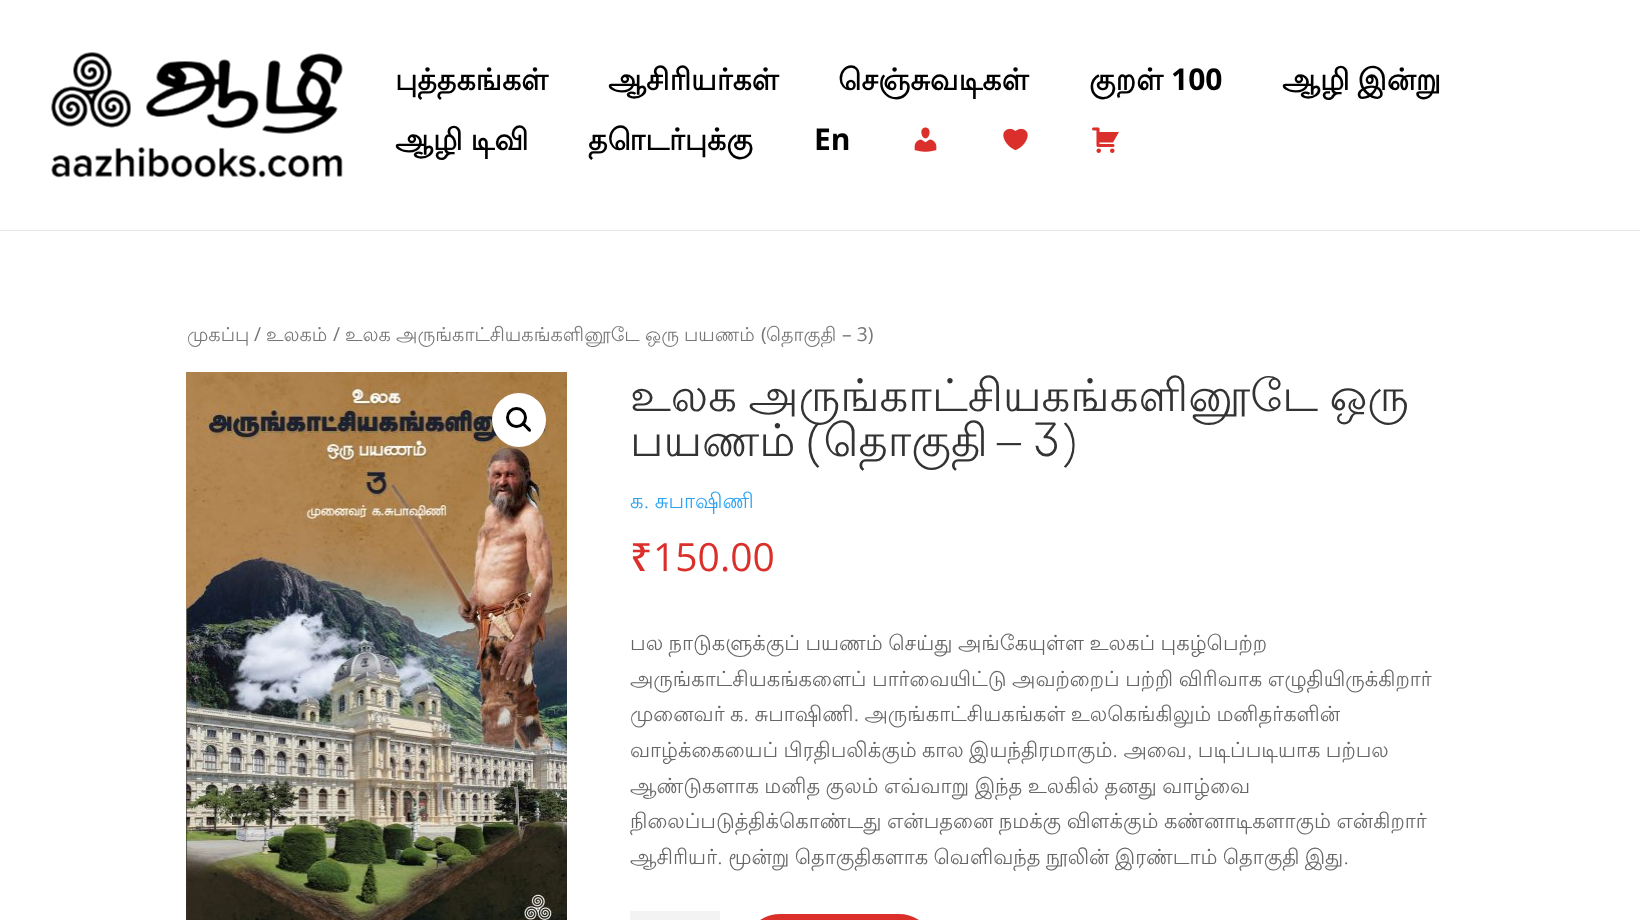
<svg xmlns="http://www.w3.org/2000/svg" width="1640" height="920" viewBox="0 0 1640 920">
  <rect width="100%" height="100%" fill="rgb(255,255,255)"/>
  <rect x="0" y="230" width="1640" height="1" fill="rgb(230,230,230)"/>
  <image x="51" y="52" width="292" height="126" href="pic1.png"/>
  <g font-family="Lohit Tamil" font-size="30" font-weight="bold" fill="rgb(0,0,0)">
    <text x="395" y="90">புத்தகங்கள்</text>
    <text x="608" y="90">ஆசிரியர்கள்</text>
    <text x="838" y="90">செஞ்சுவடிகள்</text>
    <text x="1089" y="90">குறள்</text>
  </g>
  <text x="1171" y="90" font-family="Open Sans" font-size="30" font-weight="bold" fill="rgb(0,0,0)">100</text>
  <g font-family="Lohit Tamil" font-size="30" font-weight="bold" fill="rgb(0,0,0)">
    <text x="1282" y="90" word-spacing="-1">ஆழி இன்று</text>
    <text x="395" y="150" word-spacing="-1">ஆழி டிவி</text>
    <text x="588" y="150">தொடர்புக்கு</text>
  </g>
  <text x="814" y="150" font-family="Open Sans" font-size="30" font-weight="bold" fill="rgb(0,0,0)">En</text>
  <image x="914" y="127" width="23" height="25" href="pic2.png"/>
  <image x="1003" y="128" width="25" height="23" href="pic3.png"/>
  <image x="1092" y="127" width="27" height="26" href="pic4.png"/>
  <text x="187" y="341" font-family="Lohit Tamil" font-size="19.25" fill="rgb(118,118,118)">முகப்பு</text>
  <text x="254" y="341" font-family="Open Sans" font-size="19.25" fill="rgb(118,118,118)">/</text>
  <text x="266" y="341" font-family="Lohit Tamil" font-size="19.25" fill="rgb(118,118,118)">உலகம்</text>
  <text x="333" y="341" font-family="Open Sans" font-size="19.25" fill="rgb(118,118,118)">/</text>
  <g font-family="Lohit Tamil" font-size="19.25" fill="rgb(118,118,118)">
    <text x="345" y="341">உலக</text>
    <text x="396" y="341">அருங்காட்சியகங்களினூடே</text>
    <text x="645" y="341">ஒரு</text>
    <text x="684" y="341">பயணம்</text>
  </g>
  <text x="761" y="341" font-family="Open Sans" font-size="19.25" fill="rgb(118,118,118)">(</text>
  <text x="766" y="341" font-family="Lohit Tamil" font-size="19.25" fill="rgb(118,118,118)">தொகுதி</text>
  <text x="842" y="341" font-family="Open Sans" font-size="19.25" fill="rgb(118,118,118)">– 3)</text>
  <image x="186" y="372" width="381" height="548" href="pic5.png"/>
  <circle cx="519" cy="420" r="27" fill="rgb(255,255,255)"/>
  <circle cx="516.5" cy="417.5" r="9" fill="none" stroke="rgb(0,0,0)" stroke-width="3"/>
  <path d="M522 423C524 421 526.5 425 527.5 426C528.5 427 532.5 429.5 530.5 431.5C529 433 526.5 429 525.5 428C524.5 427 520.5 424.5 522 423Z" fill="rgb(0,0,0)"/>
  <g font-family="Lohit Tamil" font-size="45" fill="rgb(51,51,51)">
    <text>
      <tspan x="630" y="411" word-spacing="-2">உலக அருங்காட்சியகங்களினூடே ஒரு</tspan>
      <tspan x="630" y="456" word-spacing="-4.5">பயணம் (தொகுதி – 3)</tspan>
    </text>
  </g>
  <text x="630" y="508" word-spacing="-0.75" font-family="Lohit Tamil" font-size="21" fill="rgb(46,163,242)">க. சுபாஷிணி</text>
  <text x="630" y="571" font-family="Noto Sans" font-size="39" font-weight="500" fill="rgb(218,47,42)">₹</text>
  <text x="653" y="571" font-family="Open Sans" font-size="39" fill="rgb(218,47,42)">150.00</text>
  <g font-family="Lohit Tamil" font-size="21" fill="rgb(102,102,102)">
    <text>
      <tspan x="630" y="650" word-spacing="-0.75">பல நாடுகளுக்குப் பயணம் செய்து அங்கேயுள்ள உலகப் புகழ்பெற்ற</tspan>
      <tspan x="630" y="686" word-spacing="-0.75">அருங்காட்சியகங்களைப் பார்வையிட்டு அவற்றைப் பற்றி விரிவாக எழுதியிருக்கிறார்</tspan>
      <tspan x="630" y="721" word-spacing="-1">முனைவர் க. சுபாஷிணி. அருங்காட்சியகங்கள் உலகெங்கிலும் மனிதர்களின்</tspan>
      <tspan x="630" y="757" word-spacing="-1">வாழ்க்கையைப் பிரதிபலிக்கும் கால இயந்திரமாகும். அவை, படிப்படியாக பற்பல</tspan>
      <tspan x="630" y="793" word-spacing="-0.75">ஆண்டுகளாக மனித குலம் எவ்வாறு இந்த உலகில் தனது வாழ்வை</tspan>
      <tspan x="630" y="828" word-spacing="-0.75">நிலைப்படுத்திக்கொண்டது என்பதனை நமக்கு விளக்கும் கண்னாடிகளாகும் என்கிறார்</tspan>
      <tspan x="630" y="864" word-spacing="-1">ஆசிரியர். மூன்று தொகுதிகளாக வெளிவந்த நூலின் இரண்டாம் தொகுதி இது.</tspan>
    </text>
  </g>
  <rect x="630" y="911" width="90" height="9" fill="rgb(243,243,243)"/>
  <rect x="751.5" y="912.5" width="176" height="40" rx="29" fill="rgb(219,47,42)" stroke="rgb(255,255,255)" stroke-width="3"/>
</svg>
